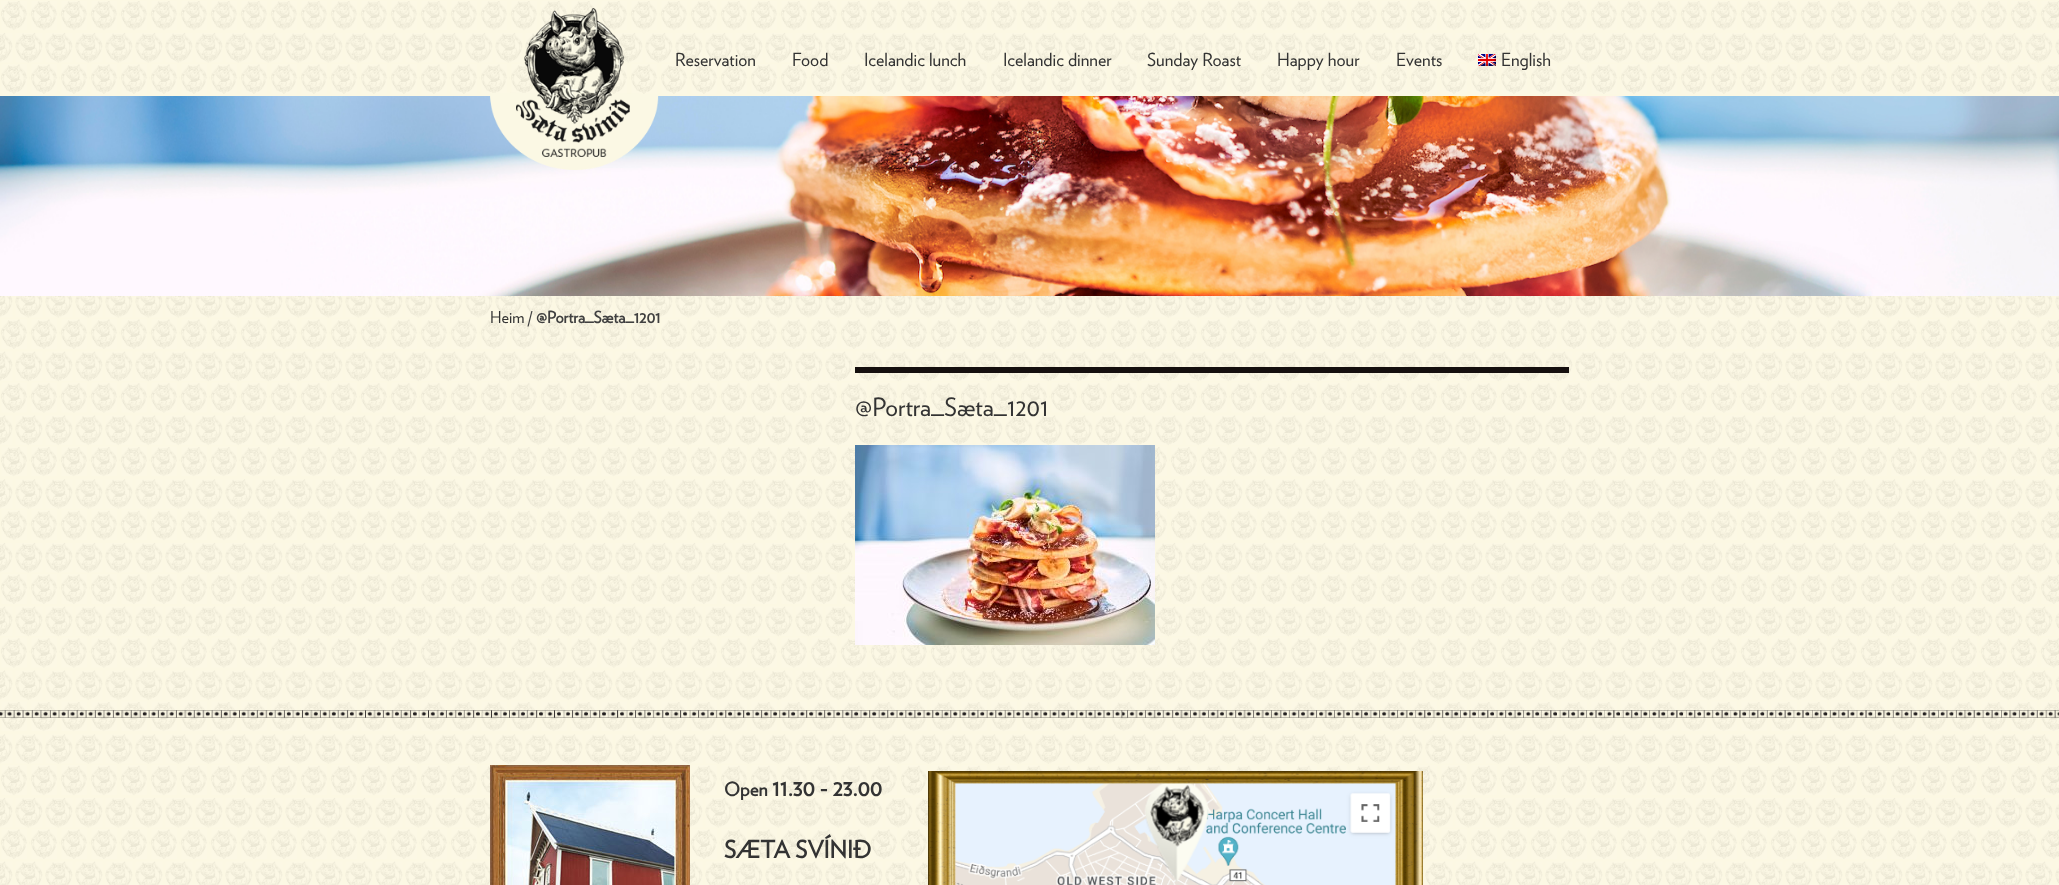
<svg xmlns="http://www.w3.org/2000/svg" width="2059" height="885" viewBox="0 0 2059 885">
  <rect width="100%" height="100%" fill="rgb(252,248,227)"/>
  <image x="0" y="1" width="2059" height="884" href="pic1.png"/>
  <image x="0" y="96" width="2059" height="200" href="pic4.png"/>
  <image x="490" y="8" width="169" height="162" href="pic2.png"/>
  <g font-family="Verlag" font-size="18" fill="rgb(51,51,51)">
    <text x="675" y="66">Reservation</text>
    <text x="792" y="66">Food</text>
    <text x="864" y="66">Icelandic lunch</text>
    <text x="1003" y="66">Icelandic dinner</text>
    <text x="1147" y="66">Sunday Roast</text>
    <text x="1277" y="66">Happy hour</text>
    <text x="1396" y="66">Events</text>
  </g>
  <image x="1478" y="54" width="18" height="12" href="pic3.png"/>
  <text x="1501" y="66" font-family="Verlag" font-size="18" fill="rgb(51,51,51)">English</text>
  <text x="490" y="323" font-family="Verlag" font-size="16.25" fill="rgb(51,51,51)">Heim</text>
  <text x="527" y="323" font-family="Verlag" font-size="16.25" fill="rgb(64,64,64)">/</text>
  <text x="536" y="323" font-family="Verlag" font-size="16.25" font-weight="bold" fill="rgb(64,64,64)">@Portra_Sæta_1201</text>
  <rect x="855" y="367" width="714" height="6" fill="rgb(21,15,14)"/>
  <text x="855" y="416" font-family="Verlag" font-size="25.25" fill="rgb(51,51,51)">@Portra_Sæta_1201</text>
  <image x="855" y="445" width="300" height="200" href="pic5.png"/>
  <image x="0" y="710" width="2059" height="8" href="pic6.png"/>
  <image x="490" y="765" width="200" height="120" href="pic7.png"/>
  <text x="724" y="796" font-family="Verlag" font-size="19" font-weight="bold" fill="rgb(51,51,51)">Open</text>
  <text x="772" y="796" font-family="Verlag" font-size="23" font-weight="bold" fill="rgb(51,51,51)">11.30 - 23.00</text>
  <text x="724" y="858" font-family="Verlag" font-size="24" font-weight="bold" fill="rgb(51,51,51)">SÆTA SVÍNIÐ</text>
  <image x="928" y="771" width="495" height="114" href="pic8.png"/>
</svg>
